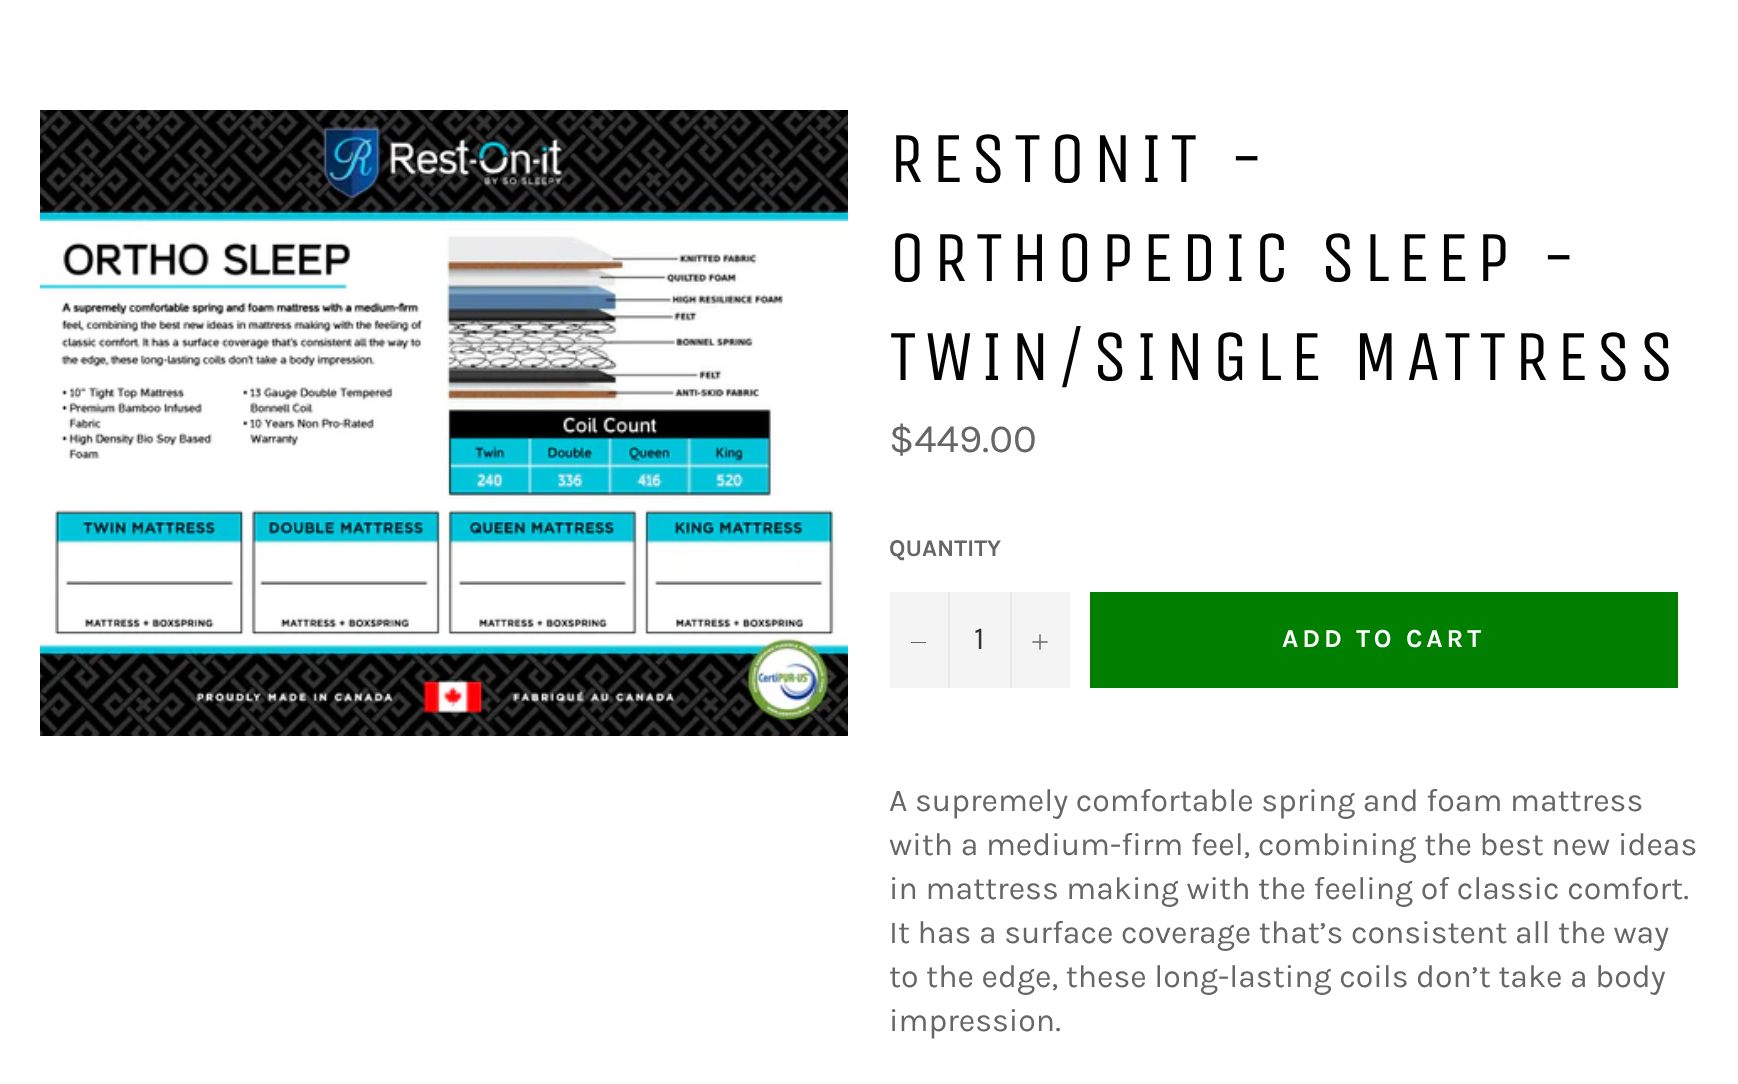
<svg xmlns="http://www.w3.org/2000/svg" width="1738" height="1084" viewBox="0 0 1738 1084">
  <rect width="100%" height="100%" fill="rgb(255,255,255)"/>
  <image x="40" y="110" width="808" height="626" href="pic1.png"/>
  <g font-family="Unica One" font-size="72" letter-spacing="7.25" fill="rgb(3,3,3)">
    <text>
      <tspan x="889" y="182">RESTONIT -</tspan>
      <tspan x="889" y="281">ORTHOPEDIC SLEEP -</tspan>
      <tspan x="889" y="380">TWIN/SINGLE MATTRESS</tspan>
    </text>
  </g>
  <text x="889" y="452" font-family="Karla" font-size="40" fill="rgb(102,102,102)">$449.00</text>
  <text x="889" y="556" font-family="Karla" font-size="24" font-weight="bold" fill="rgb(102,102,102)">QUANTITY</text>
  <rect x="890" y="592" width="180" height="96" fill="rgb(244,244,244)"/>
  <rect x="948" y="592" width="2" height="96" fill="rgb(231,231,231)"/>
  <rect x="911" y="642" width="15" height="1" fill="rgb(102,102,102)"/>
  <text x="974" y="649" font-family="Karla" font-size="32" fill="rgb(51,51,51)">1</text>
  <rect x="1010" y="592" width="2" height="96" fill="rgb(231,231,231)"/>
  <image x="1032" y="634" width="16" height="16" href="pic2.png"/>
  <rect x="1090" y="592" width="588" height="96" fill="rgb(0,127,0)"/>
  <text x="1282" y="647" font-family="Karla" font-size="26" font-weight="bold" letter-spacing="3.9" fill="rgb(255,255,255)">ADD TO CART</text>
  <g font-family="Karla" font-size="32" fill="rgb(102,102,102)">
    <text>
      <tspan x="889" y="811">A supremely comfortable spring and foam mattress</tspan>
      <tspan x="889" y="855">with a medium-firm feel, combining the best new ideas</tspan>
      <tspan x="889" y="899">in mattress making with the feeling of classic comfort.</tspan>
      <tspan x="889" y="943">It has a surface coverage that’s consistent all the way</tspan>
      <tspan x="889" y="987">to the edge, these long-lasting coils don’t take a body</tspan>
      <tspan x="889" y="1031">impression.</tspan>
    </text>
  </g>
</svg>
